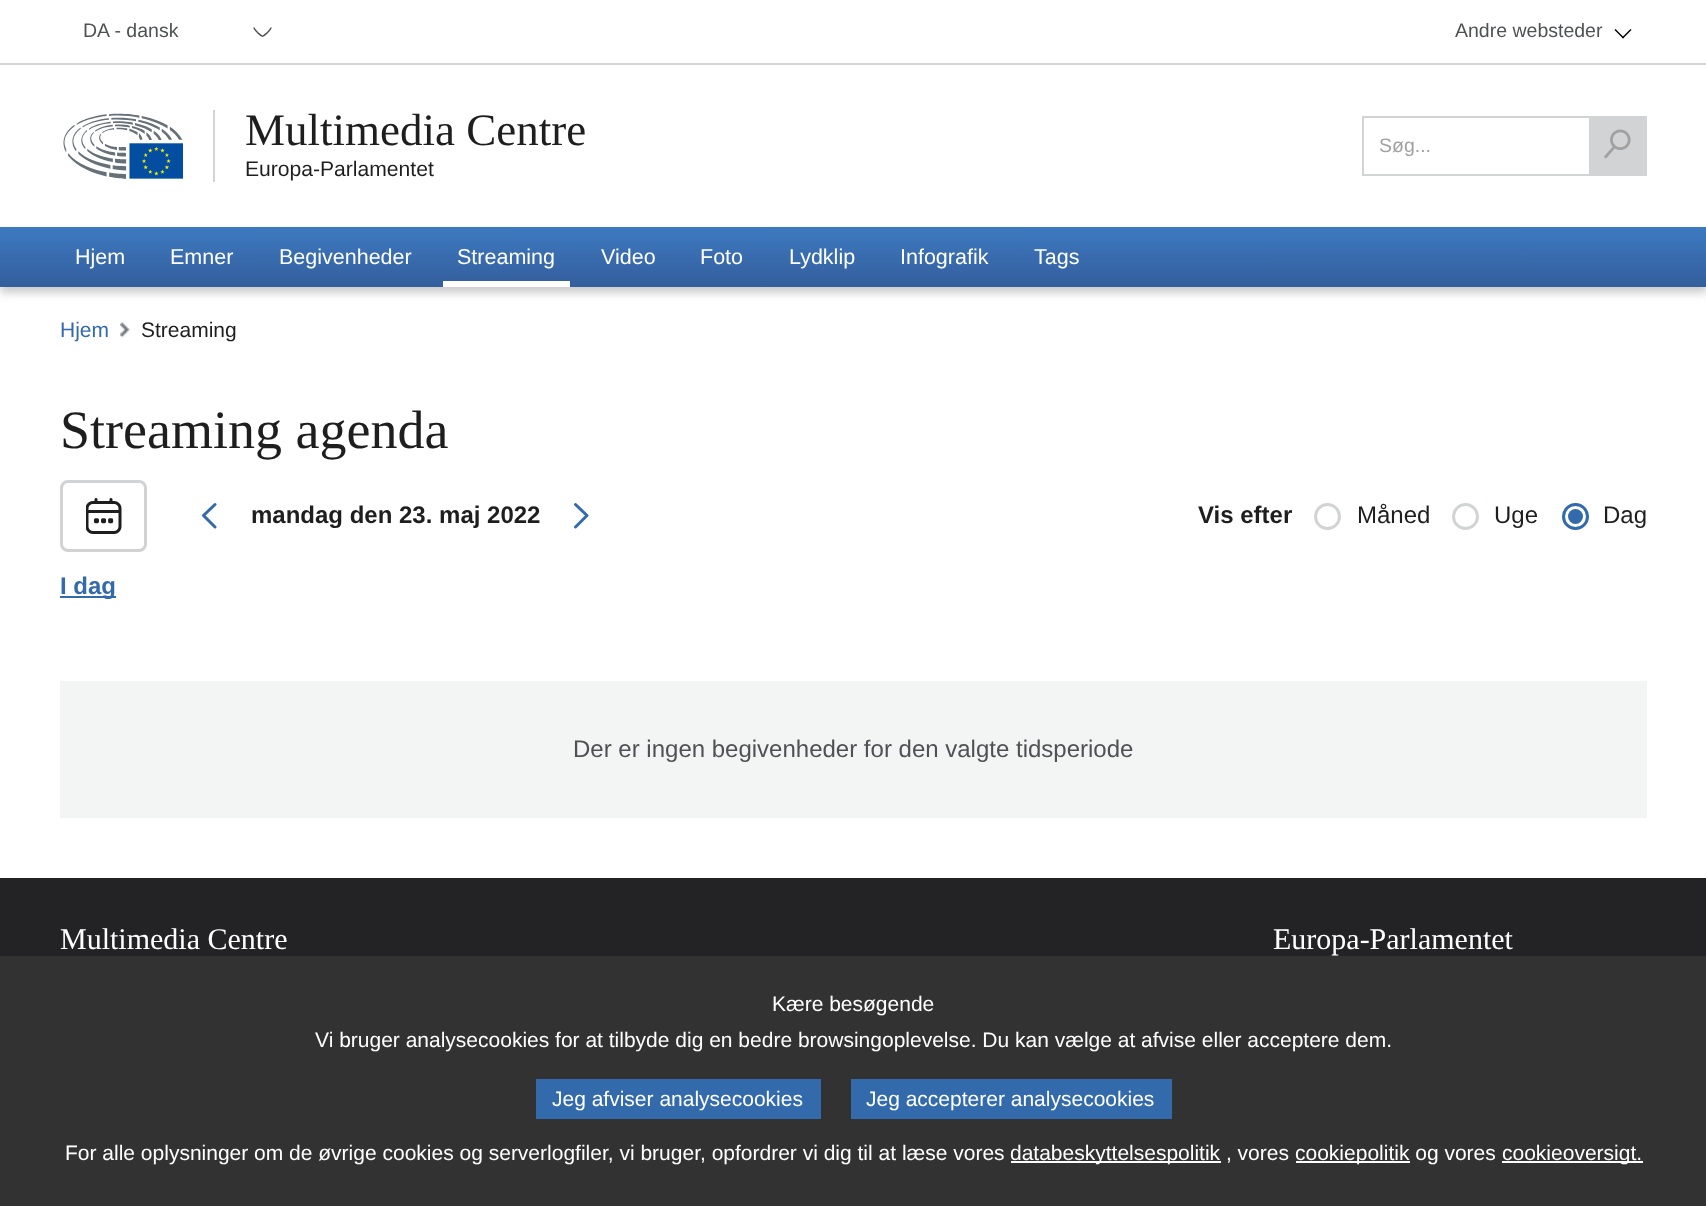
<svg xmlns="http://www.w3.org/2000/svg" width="1706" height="1206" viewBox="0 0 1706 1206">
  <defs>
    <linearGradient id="g1" gradientUnits="userSpaceOnUse" x1="854" y1="226" x2="854" y2="287"><stop offset="0" stop-color="rgb(61,122,193)"/><stop offset="1" stop-color="rgb(52,94,156)"/></linearGradient>
  </defs>
  <rect width="100%" height="100%" fill="rgb(255,255,255)"/>
  <rect x="0" y="63" width="1706" height="2" fill="rgb(209,211,212)"/>
  <text x="83" y="37" font-family="Liberation Sans" font-size="19.5" fill="rgb(80,81,84)">DA - dansk</text>
  <path d="M271 27.5C271 29.5 268.5 31 267.5 32.5C262 37.5 263 37.5 257.5 32.5C256.5 31 254 29.5 254 27.5" fill="none" stroke="rgb(80,81,84)" stroke-width="1.5"/>
  <text x="1455" y="37" font-family="Liberation Sans" font-size="19.5" fill="rgb(80,81,84)">Andre websteder</text>
  <path d="M1630.5 29L1631.5 30L1623 38.5L1622 37.5Z" fill="rgb(0,0,0)"/>
  <path d="M1615.5 29L1624 37.5L1623 38.5L1614.5 30Z" fill="rgb(0,0,0)"/>
  <image x="63" y="113" width="120" height="66" href="pic1.png"/>
  <rect x="213" y="110" width="2" height="72" fill="rgb(209,211,212)"/>
  <text x="245" y="145" font-family="Liberation Serif" font-size="45" fill="rgb(30,30,31)">Multimedia Centre</text>
  <text x="245" y="176" font-family="Liberation Sans" font-size="21.1" fill="rgb(30,30,31)">Europa-Parlamentet</text>
  <rect x="1363" y="117" width="283" height="58" fill="none" stroke="rgb(209,211,212)" stroke-width="2"/>
  <text x="1379" y="152" font-family="Liberation Sans" font-size="19.5" fill="rgb(162,161,162)">Søg...</text>
  <rect x="1589" y="118" width="56" height="56" fill="rgb(209,211,212)"/>
  <image x="1604" y="129" width="27" height="30" href="pic2.png"/>
  <rect x="0" y="233" width="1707" height="60" fill="rgba(0,0,0,0.2)" filter="blur(4px)"/>
  <rect x="0" y="227" width="1706" height="60" fill="url(#g1)"/>
  <g font-family="Liberation Sans" font-size="21.5" fill="rgb(255,255,255)">
    <text x="75" y="264">Hjem</text>
    <text x="170" y="264">Emner</text>
    <text x="279" y="264">Begivenheder</text>
    <text x="457" y="264">Streaming</text>
  </g>
  <rect x="443" y="281" width="127" height="6" fill="rgb(255,255,255)"/>
  <g font-family="Liberation Sans" font-size="21.5" fill="rgb(255,255,255)">
    <text x="601" y="264">Video</text>
    <text x="700" y="264">Foto</text>
    <text x="789" y="264">Lydklip</text>
    <text x="900" y="264">Infografik</text>
    <text x="1034" y="264">Tags</text>
  </g>
  <text x="60" y="337" font-family="Liberation Sans" font-size="21" fill="rgb(50,106,171)">Hjem</text>
  <image x="120" y="322" width="10" height="16" href="pic3.png"/>
  <text x="141" y="337" font-family="Liberation Sans" font-size="21" fill="rgb(30,30,31)">Streaming</text>
  <text x="60" y="448" font-family="Liberation Serif" font-size="54" fill="rgb(30,30,31)">Streaming agenda</text>
  <rect x="61.5" y="481.5" width="84" height="69" rx="6.5" fill="none" stroke="rgb(209,210,211)" stroke-width="3"/>
  <image x="86" y="498" width="36" height="36" href="pic4.png"/>
  <path d="M215 527L203.5 515.5ZM215 504.5L203.5 515.5Z" fill="none" stroke="rgb(50,106,171)" stroke-width="3" stroke-linecap="round" stroke-linejoin="round"/>
  <text x="251" y="523" font-family="Liberation Sans" font-size="24" font-weight="bold" fill="rgb(30,30,31)">mandag den 23. maj 2022</text>
  <path d="M575.5 504.5L587 515.5ZM575.5 527L587 515.5Z" fill="none" stroke="rgb(50,106,171)" stroke-width="3" stroke-linecap="round" stroke-linejoin="round"/>
  <text x="1198" y="523" font-family="Liberation Sans" font-size="24" font-weight="bold" fill="rgb(30,30,31)">Vis efter</text>
  <circle cx="1327.5" cy="516.5" r="12" fill="none" stroke="rgb(209,211,212)" stroke-width="3"/>
  <text x="1357" y="523" font-family="Liberation Sans" font-size="24" fill="rgb(30,30,31)">Måned</text>
  <circle cx="1465.5" cy="516.5" r="12" fill="none" stroke="rgb(209,211,212)" stroke-width="3"/>
  <text x="1494" y="523" font-family="Liberation Sans" font-size="24" fill="rgb(30,30,31)">Uge</text>
  <circle cx="1575.5" cy="516.5" r="12" fill="none" stroke="rgb(50,106,171)" stroke-width="3"/>
  <circle cx="1575.5" cy="516.5" r="7.5" fill="rgb(50,106,171)"/>
  <text x="1603" y="523" font-family="Liberation Sans" font-size="24" fill="rgb(30,30,31)">Dag</text>
  <rect x="60" y="596" width="56" height="2" fill="rgb(50,106,171)"/>
  <text x="60" y="594" font-family="Liberation Sans" font-size="24" font-weight="bold" fill="rgb(50,106,171)">I dag</text>
  <rect x="60" y="681" width="1587" height="137" fill="rgb(243,244,244)"/>
  <text x="573" y="757" font-family="Liberation Sans" font-size="24" fill="rgb(80,81,84)">Der er ingen begivenheder for den valgte tidsperiode</text>
  <rect x="0" y="878" width="1706" height="78" fill="rgb(35,34,37)"/>
  <rect x="0" y="956" width="1706" height="250" fill="rgb(50,50,50)"/>
  <g font-family="Liberation Serif" font-size="30" fill="rgb(255,255,255)">
    <text x="60" y="949">Multimedia Centre</text>
    <text x="1273" y="949">Europa-Parlamentet</text>
  </g>
  <g font-family="Liberation Sans" font-size="21" fill="rgb(255,255,255)">
    <text x="772" y="1011">Kære besøgende</text>
    <text x="315" y="1047">Vi bruger analysecookies for at tilbyde dig en bedre browsingoplevelse. Du kan vælge at afvise eller acceptere dem.</text>
  </g>
  <rect x="536" y="1079" width="285" height="40" fill="rgb(50,106,171)"/>
  <text x="552" y="1106" font-family="Liberation Sans" font-size="21" fill="rgb(255,255,255)">Jeg afviser analysecookies</text>
  <rect x="851" y="1079" width="321" height="40" fill="rgb(50,106,171)"/>
  <g font-family="Liberation Sans" font-size="21" fill="rgb(255,255,255)">
    <text x="866" y="1106">Jeg accepterer analysecookies</text>
    <text x="65" y="1160">For alle oplysninger om de øvrige cookies og serverlogfiler, vi bruger, opfordrer vi dig til at læse vores</text>
  </g>
  <rect x="1011" y="1161" width="210" height="2" fill="rgb(255,255,255)"/>
  <text x="1010" y="1160" font-family="Liberation Sans" font-size="21" fill="rgb(255,255,255)">databeskyttelsespolitik , vores</text>
  <rect x="1296" y="1161" width="114" height="2" fill="rgb(255,255,255)"/>
  <text x="1295" y="1160" font-family="Liberation Sans" font-size="21" fill="rgb(255,255,255)">cookiepolitik og vores</text>
  <rect x="1502" y="1161" width="141" height="2" fill="rgb(255,255,255)"/>
  <text x="1502" y="1160" font-family="Liberation Sans" font-size="21" fill="rgb(255,255,255)">cookieoversigt.</text>
</svg>
